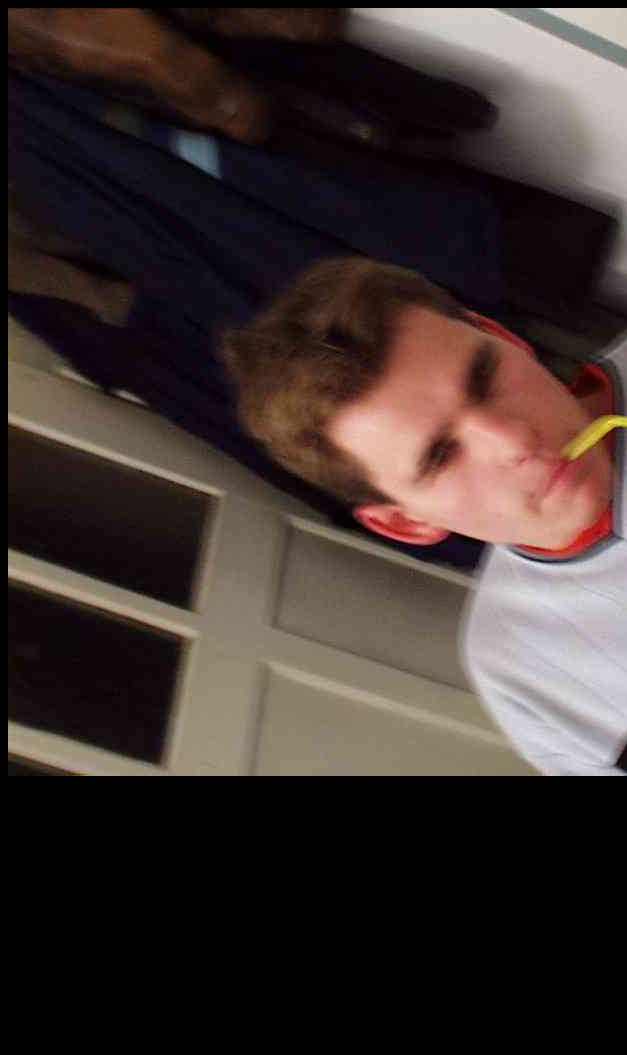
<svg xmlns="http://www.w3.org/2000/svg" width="627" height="1055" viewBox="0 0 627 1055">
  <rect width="100%" height="100%" fill="rgb(0,0,0)"/>
  <image x="8" y="8" width="619" height="768" href="pic1.png"/>
</svg>
